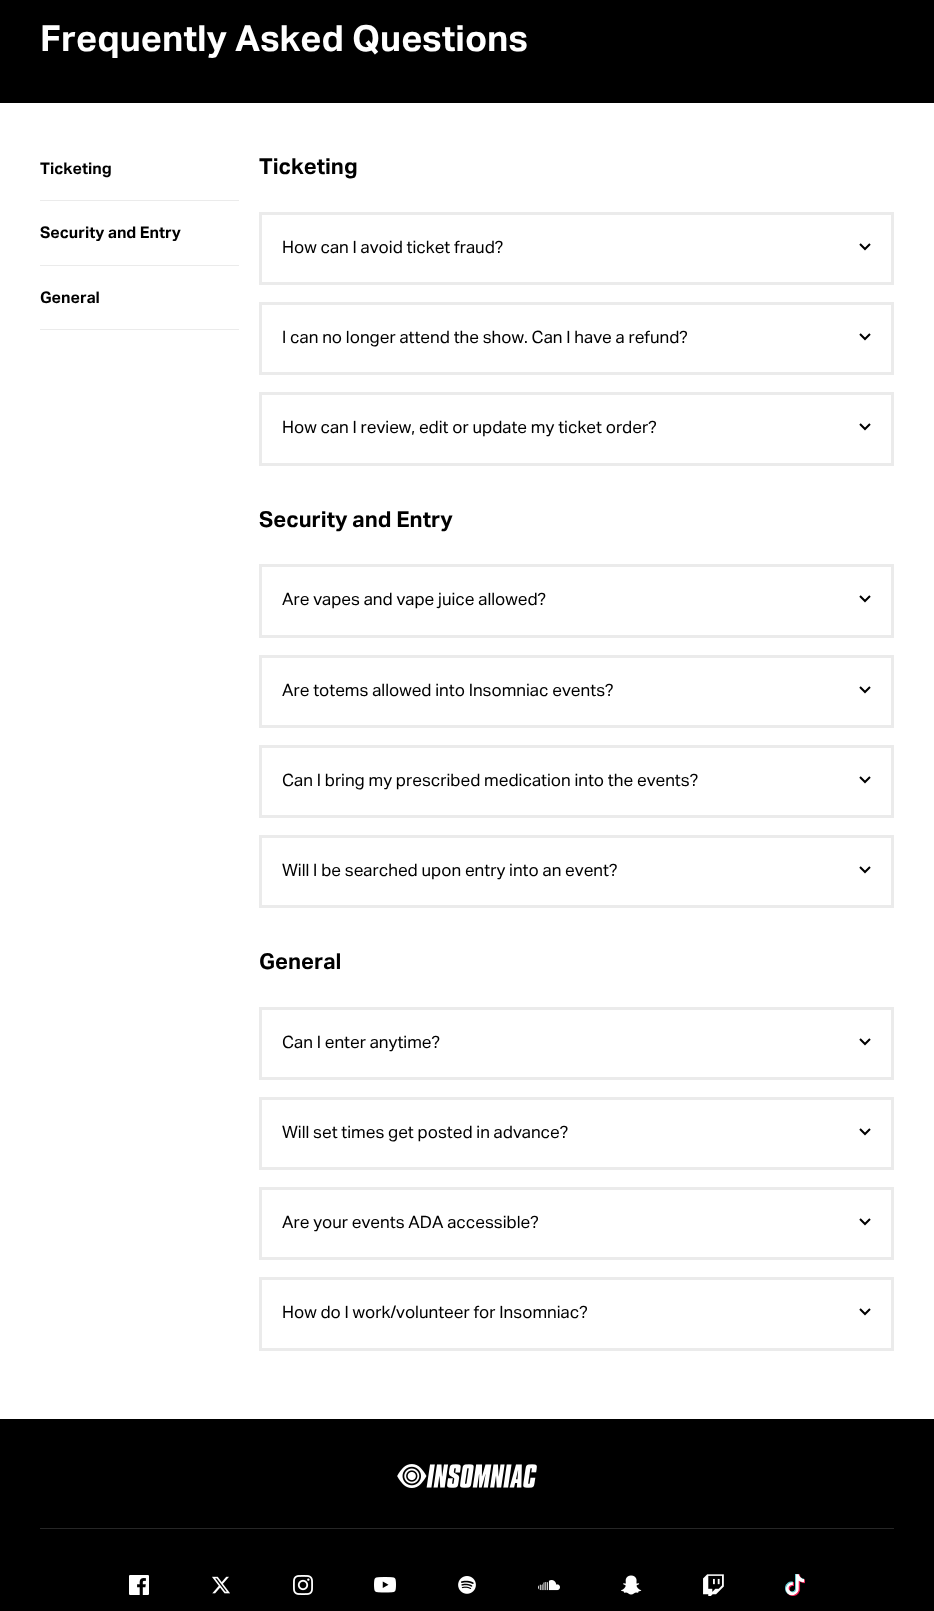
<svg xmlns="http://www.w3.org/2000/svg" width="934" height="1611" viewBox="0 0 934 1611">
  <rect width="100%" height="100%" fill="rgb(255,255,255)"/>
  <rect x="0" y="0" width="934" height="103" fill="rgb(0,0,0)"/>
  <text x="40" y="51" font-family="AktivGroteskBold" font-size="36" fill="rgb(255,255,255)">Frequently Asked Questions</text>
  <rect x="40" y="200" width="199" height="1" fill="rgb(235,235,235)"/>
  <text x="40" y="174" font-family="AktivGroteskBold" font-size="16" fill="rgb(0,0,0)">Ticketing</text>
  <rect x="40" y="265" width="199" height="1" fill="rgb(235,235,235)"/>
  <text x="40" y="238" font-family="AktivGroteskBold" font-size="16" fill="rgb(0,0,0)">Security and Entry</text>
  <rect x="40" y="329" width="199" height="1" fill="rgb(235,235,235)"/>
  <text x="40" y="303" font-family="AktivGroteskBold" font-size="16" fill="rgb(0,0,0)">General</text>
  <text x="259" y="174" font-family="AktivGroteskBold" font-size="22" fill="rgb(0,0,0)">Ticketing</text>
  <rect x="260.5" y="213.5" width="632" height="70" fill="none" stroke="rgb(235,235,235)" stroke-width="3"/>
  <text x="282" y="253" font-family="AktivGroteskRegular" font-size="17" fill="rgb(0,0,0)">How can I avoid ticket fraud?</text>
  <path d="M860 244L865 249L870 244" fill="none" stroke="rgb(0,0,0)" stroke-width="2"/>
  <rect x="260.5" y="303.5" width="632" height="70" fill="none" stroke="rgb(235,235,235)" stroke-width="3"/>
  <text x="282" y="343" font-family="AktivGroteskRegular" font-size="17" fill="rgb(0,0,0)">I can no longer attend the show. Can I have a refund?</text>
  <path d="M860 334L865 339L870 334" fill="none" stroke="rgb(0,0,0)" stroke-width="2"/>
  <rect x="260.5" y="393.5" width="632" height="71" fill="none" stroke="rgb(235,235,235)" stroke-width="3"/>
  <text x="282" y="433" font-family="AktivGroteskRegular" font-size="17" fill="rgb(0,0,0)">How can I review, edit or update my ticket order?</text>
  <path d="M860 424L865 429L870 424" fill="none" stroke="rgb(0,0,0)" stroke-width="2"/>
  <text x="259" y="527" font-family="AktivGroteskBold" font-size="22" fill="rgb(0,0,0)">Security and Entry</text>
  <rect x="260.5" y="565.5" width="632" height="71" fill="none" stroke="rgb(235,235,235)" stroke-width="3"/>
  <text x="282" y="605" font-family="AktivGroteskRegular" font-size="17" fill="rgb(0,0,0)">Are vapes and vape juice allowed?</text>
  <path d="M860 596L865 601L870 596" fill="none" stroke="rgb(0,0,0)" stroke-width="2"/>
  <rect x="260.5" y="656.5" width="632" height="70" fill="none" stroke="rgb(235,235,235)" stroke-width="3"/>
  <text x="282" y="696" font-family="AktivGroteskRegular" font-size="17" fill="rgb(0,0,0)">Are totems allowed into Insomniac events?</text>
  <path d="M860 687L865 692L870 687" fill="none" stroke="rgb(0,0,0)" stroke-width="2"/>
  <rect x="260.5" y="746.5" width="632" height="70" fill="none" stroke="rgb(235,235,235)" stroke-width="3"/>
  <text x="282" y="786" font-family="AktivGroteskRegular" font-size="17" fill="rgb(0,0,0)">Can I bring my prescribed medication into the events?</text>
  <path d="M860 777L865 782L870 777" fill="none" stroke="rgb(0,0,0)" stroke-width="2"/>
  <rect x="260.5" y="836.5" width="632" height="70" fill="none" stroke="rgb(235,235,235)" stroke-width="3"/>
  <text x="282" y="876" font-family="AktivGroteskRegular" font-size="17" fill="rgb(0,0,0)">Will I be searched upon entry into an event?</text>
  <path d="M860 867L865 872L870 867" fill="none" stroke="rgb(0,0,0)" stroke-width="2"/>
  <text x="259" y="969" font-family="AktivGroteskBold" font-size="22" fill="rgb(0,0,0)">General</text>
  <rect x="260.5" y="1008.5" width="632" height="70" fill="none" stroke="rgb(235,235,235)" stroke-width="3"/>
  <text x="282" y="1048" font-family="AktivGroteskRegular" font-size="17" fill="rgb(0,0,0)">Can I enter anytime?</text>
  <path d="M860 1039L865 1044L870 1039" fill="none" stroke="rgb(0,0,0)" stroke-width="2"/>
  <rect x="260.5" y="1098.5" width="632" height="70" fill="none" stroke="rgb(235,235,235)" stroke-width="3"/>
  <text x="282" y="1138" font-family="AktivGroteskRegular" font-size="17" fill="rgb(0,0,0)">Will set times get posted in advance?</text>
  <path d="M860 1129L865 1134L870 1129" fill="none" stroke="rgb(0,0,0)" stroke-width="2"/>
  <rect x="260.5" y="1188.5" width="632" height="70" fill="none" stroke="rgb(235,235,235)" stroke-width="3"/>
  <text x="282" y="1228" font-family="AktivGroteskRegular" font-size="17" fill="rgb(0,0,0)">Are your events ADA accessible?</text>
  <path d="M860 1219L865 1224L870 1219" fill="none" stroke="rgb(0,0,0)" stroke-width="2"/>
  <rect x="260.5" y="1278.5" width="632" height="71" fill="none" stroke="rgb(235,235,235)" stroke-width="3"/>
  <text x="282" y="1318" font-family="AktivGroteskRegular" font-size="17" fill="rgb(0,0,0)">How do I work/volunteer for Insomniac?</text>
  <path d="M860 1309L865 1314L870 1309" fill="none" stroke="rgb(0,0,0)" stroke-width="2"/>
  <rect x="0" y="1419" width="934" height="192" fill="rgb(0,0,0)"/>
  <image x="397" y="1464" width="140" height="24" href="pic1.png"/>
  <rect x="40" y="1528" width="854" height="1" fill="rgb(38,38,38)"/>
  <image x="129" y="1575" width="20" height="20" href="pic2.png"/>
  <image x="212" y="1576" width="18" height="18" href="pic3.png"/>
  <image x="293" y="1575" width="20" height="20" href="pic4.png"/>
  <image x="374" y="1577" width="22" height="16" href="pic5.png"/>
  <image x="458" y="1576" width="18" height="18" href="pic6.png"/>
  <image x="538" y="1580" width="22" height="11" href="pic7.png"/>
  <image x="621" y="1575" width="21" height="20" href="pic8.png"/>
  <image x="703" y="1574" width="21" height="22" href="pic9.png"/>
  <image x="785" y="1574" width="20" height="22" href="pic10.png"/>
</svg>
